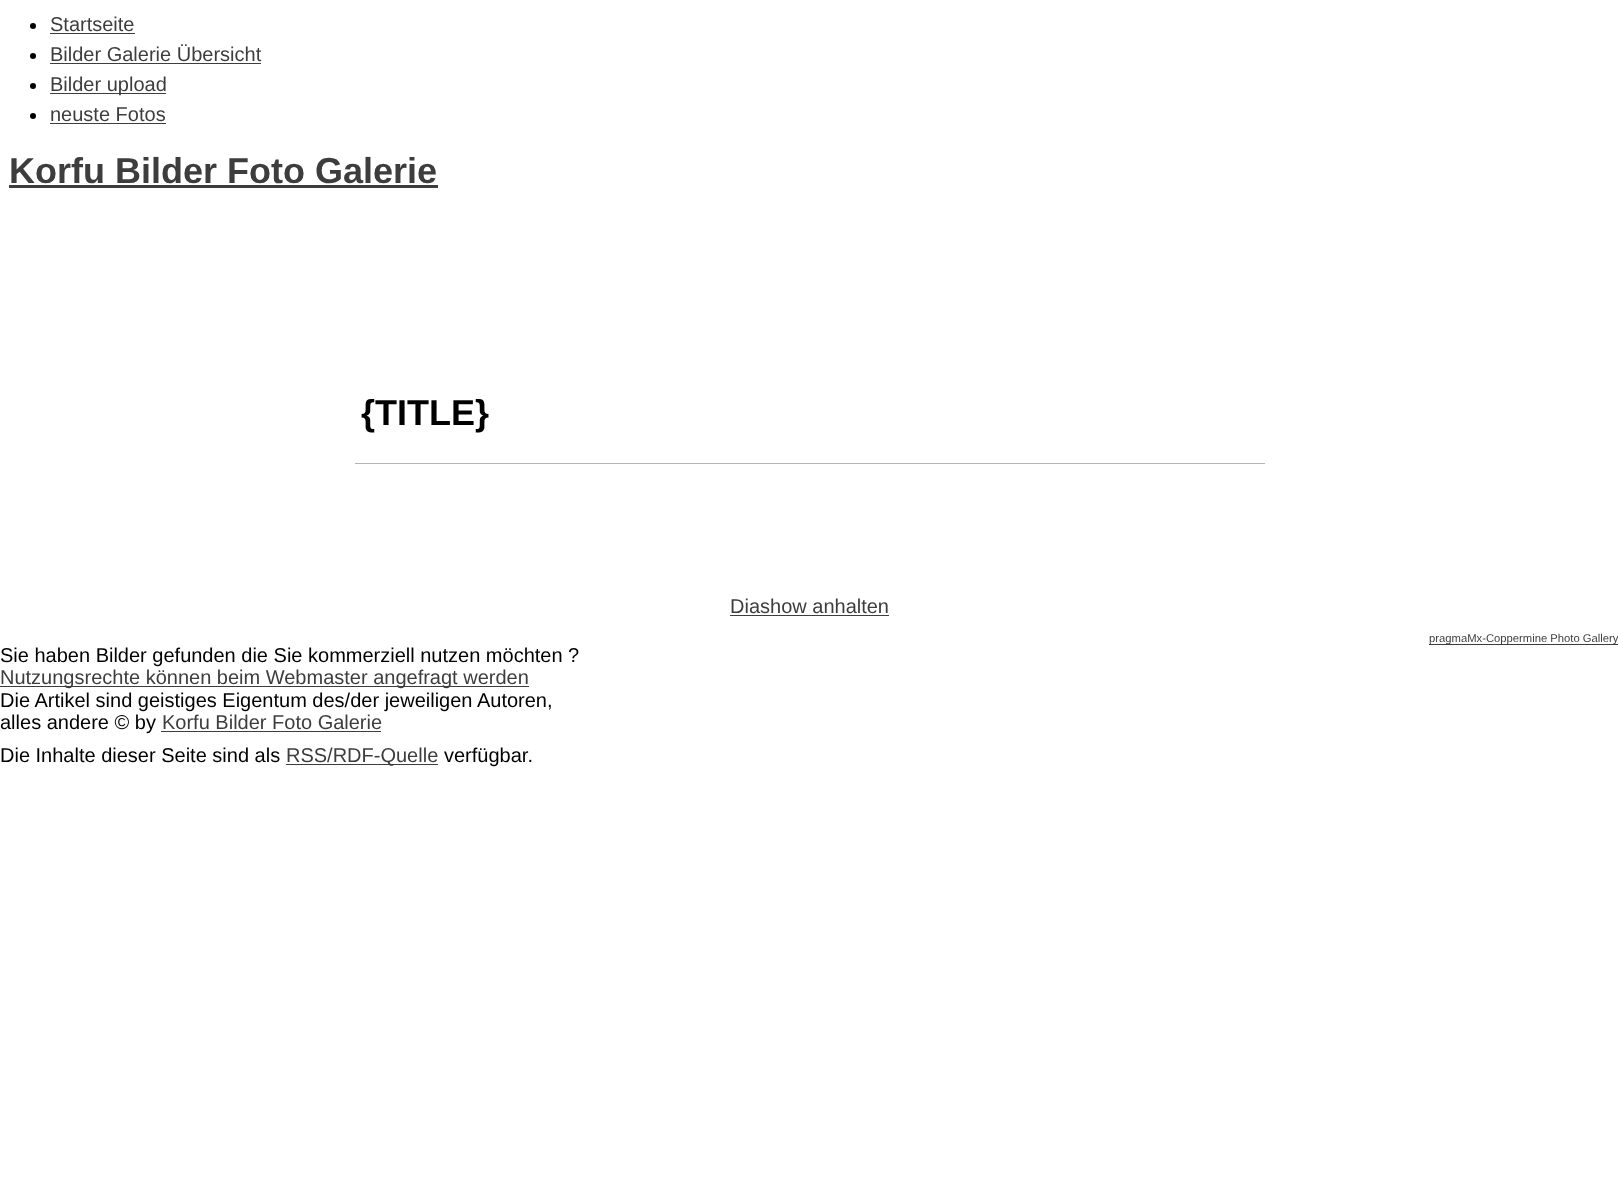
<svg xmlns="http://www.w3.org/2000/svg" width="1618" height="1182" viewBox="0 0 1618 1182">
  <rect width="100%" height="100%" fill="rgb(255,255,255)"/>
  <circle cx="33" cy="26" r="3" fill="rgb(0,0,0)"/>
  <text x="50" y="31" font-family="Liberation Sans" font-size="20" fill="rgb(61,61,61)">Startseite</text>
  <rect x="50" y="33" width="85" height="1" fill="rgb(61,61,61)"/>
  <circle cx="33" cy="56" r="3" fill="rgb(0,0,0)"/>
  <text x="50" y="61" font-family="Liberation Sans" font-size="20" fill="rgb(61,61,61)">Bilder Galerie Übersicht</text>
  <rect x="50" y="63" width="211" height="1" fill="rgb(61,61,61)"/>
  <circle cx="33" cy="86" r="3" fill="rgb(0,0,0)"/>
  <rect x="50" y="93" width="116" height="1" fill="rgb(61,61,61)"/>
  <text x="50" y="91" font-family="Liberation Sans" font-size="20" fill="rgb(61,61,61)">Bilder upload</text>
  <circle cx="33" cy="116" r="3" fill="rgb(0,0,0)"/>
  <text x="50" y="121" font-family="Liberation Sans" font-size="20" fill="rgb(61,61,61)">neuste Fotos</text>
  <rect x="50" y="123" width="116" height="1" fill="rgb(61,61,61)"/>
  <text x="9" y="183" font-family="Liberation Sans" font-size="36" font-weight="bold" fill="rgb(61,61,61)">Korfu Bilder Foto Galerie</text>
  <rect x="9" y="185" width="429" height="3" fill="rgb(61,61,61)"/>
  <text x="361" y="425" font-family="Liberation Sans" font-size="36" font-weight="bold" fill="rgb(0,0,0)">{TITLE}</text>
  <rect x="355" y="463" width="910" height="1" fill="rgb(181,181,181)"/>
  <text x="730" y="613" font-family="Liberation Sans" font-size="20" fill="rgb(61,61,61)">Diashow anhalten</text>
  <rect x="730" y="615" width="159" height="1" fill="rgb(61,61,61)"/>
  <rect x="1429" y="644" width="189" height="1" fill="rgb(61,61,61)"/>
  <text x="1429" y="642" font-family="Liberation Sans" font-size="11.25" fill="rgb(61,61,61)">pragmaMx-Coppermine Photo Gallery</text>
  <text x="0" y="662" font-family="Liberation Sans" font-size="20" fill="rgb(0,0,0)">Sie haben Bilder gefunden die Sie kommerziell nutzen möchten ?</text>
  <rect x="0" y="686" width="529" height="1" fill="rgb(61,61,61)"/>
  <text x="0" y="684" font-family="Liberation Sans" font-size="20" fill="rgb(61,61,61)">Nutzungsrechte können beim Webmaster angefragt werden</text>
  <g font-family="Liberation Sans" font-size="20" fill="rgb(0,0,0)">
    <text>
      <tspan x="0" y="707">Die Artikel sind geistiges Eigentum des/der jeweiligen Autoren,</tspan>
      <tspan x="0" y="729">alles andere © by</tspan>
    </text>
  </g>
  <text x="162" y="729" font-family="Liberation Sans" font-size="20" fill="rgb(61,61,61)">Korfu Bilder Foto Galerie</text>
  <rect x="161" y="731" width="220" height="1" fill="rgb(61,61,61)"/>
  <text x="0" y="762" font-family="Liberation Sans" font-size="20" fill="rgb(0,0,0)">Die Inhalte dieser Seite sind als</text>
  <rect x="286" y="764" width="152" height="1" fill="rgb(61,61,61)"/>
  <text x="286" y="762" font-family="Liberation Sans" font-size="20" fill="rgb(61,61,61)">RSS/RDF-Quelle</text>
  <text x="444" y="762" font-family="Liberation Sans" font-size="20" fill="rgb(0,0,0)">verfügbar.</text>
</svg>
